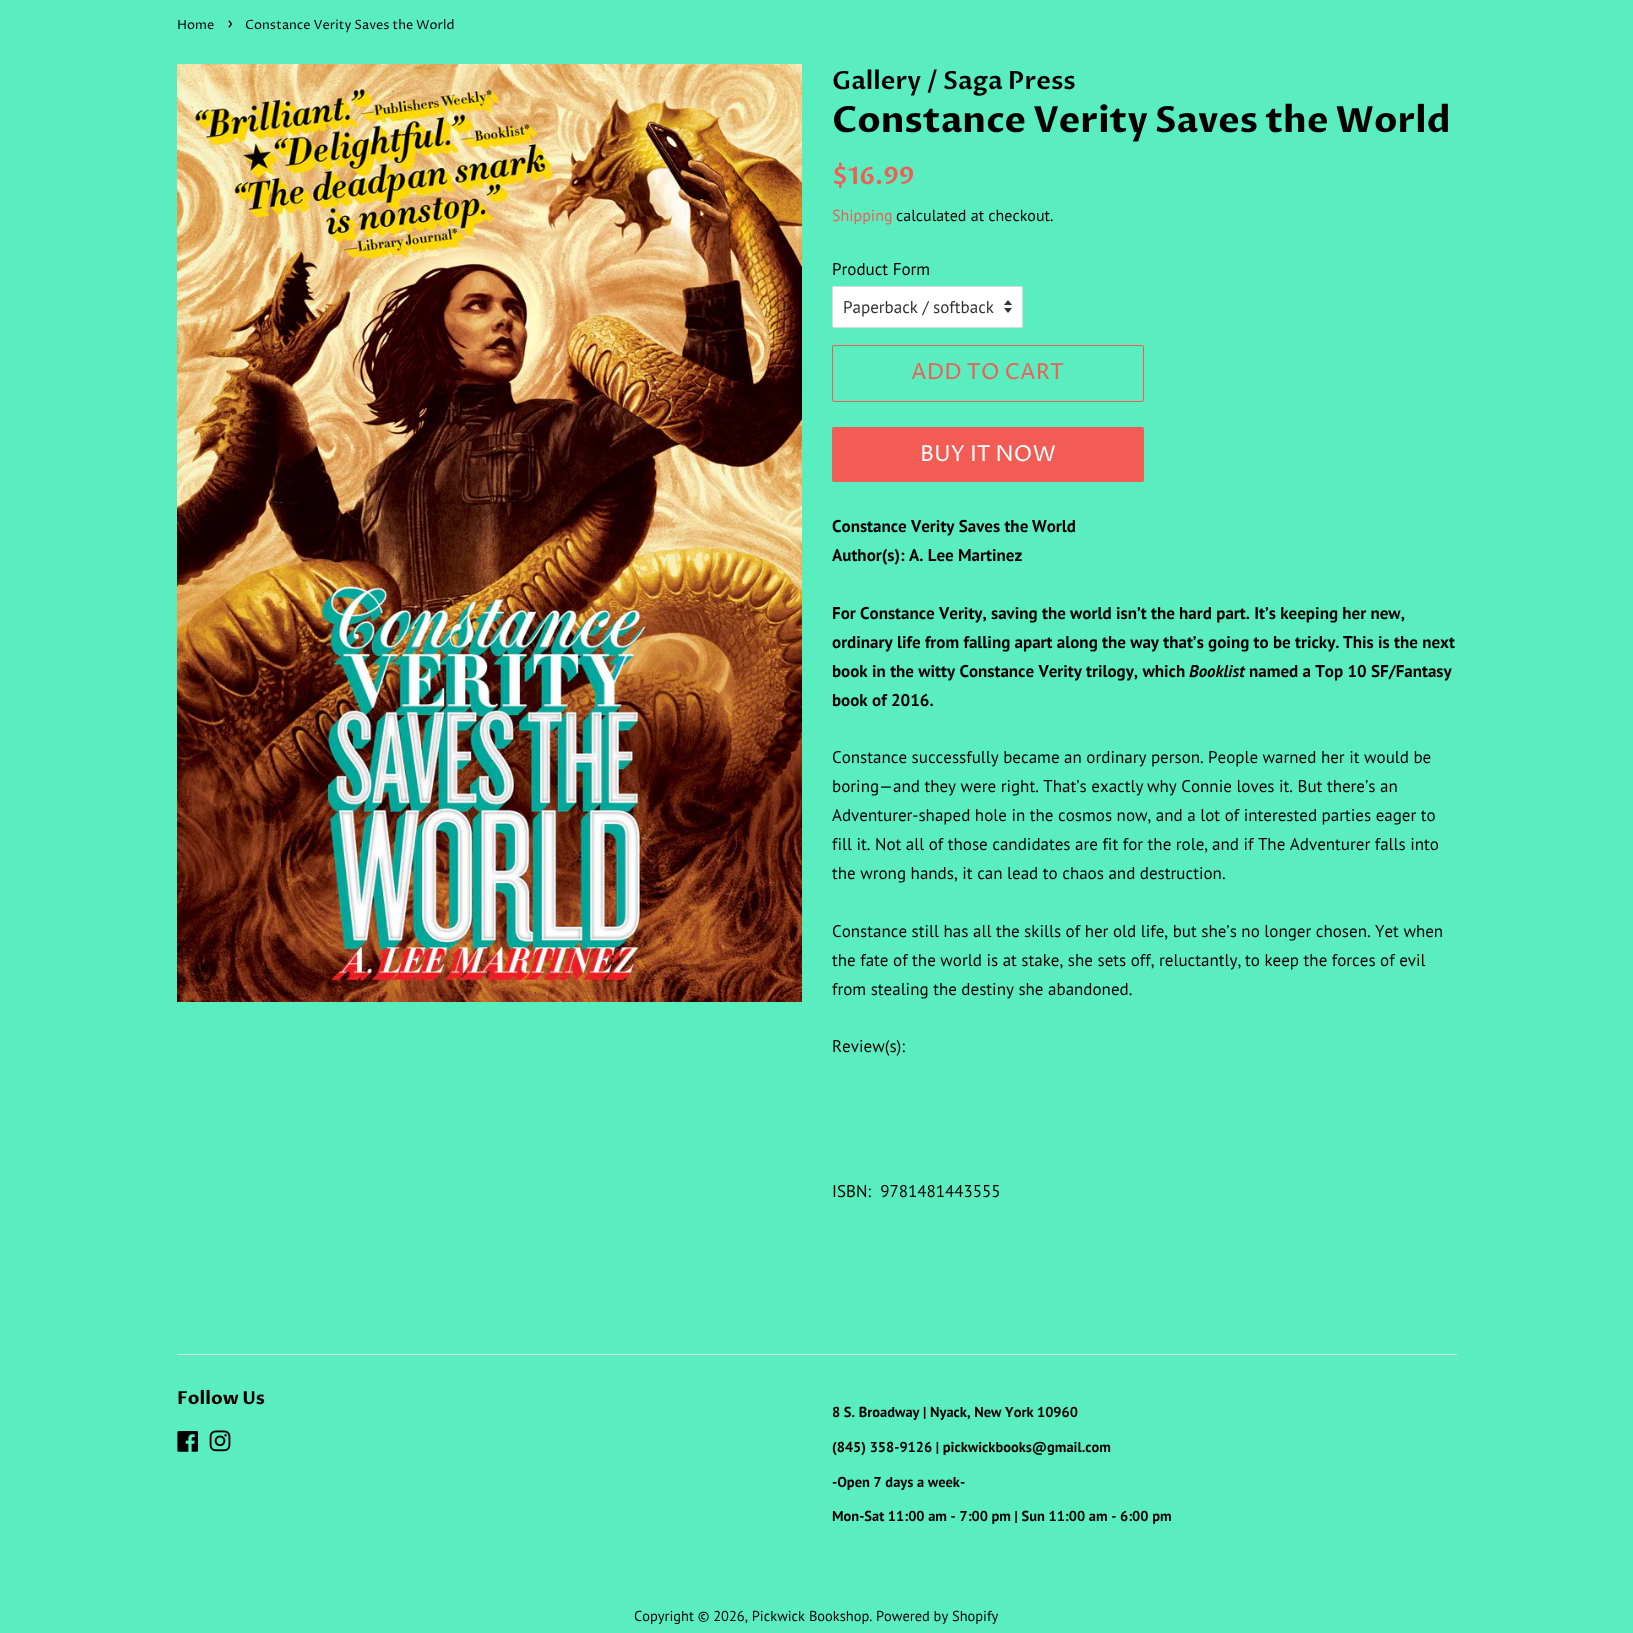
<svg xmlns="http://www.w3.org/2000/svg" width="1633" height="1633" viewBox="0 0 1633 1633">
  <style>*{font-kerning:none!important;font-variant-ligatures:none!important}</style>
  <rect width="100%" height="100%" fill="rgb(89,237,191)"/>
  <text x="177" y="29" font-family="Proza Libre" font-size="12.75" fill="rgb(0,0,0)">Home</text>
  <text x="227" y="29" font-family="Proza Libre" font-size="18" fill="rgb(0,0,0)">›</text>
  <text x="245" y="29" font-family="Proza Libre" font-size="12.75" fill="rgb(0,0,0)">Constance Verity Saves the World</text>
  <image x="177" y="64" width="625" height="938" href="pic1.png"/>
  <text x="832" y="89" font-family="Proza Libre" font-size="25" font-weight="600" fill="rgb(0,0,0)">Gallery / Saga Press</text>
  <text x="832" y="132" font-family="Proza Libre" font-size="36" font-weight="bold" fill="rgb(0,0,0)">Constance Verity Saves the World</text>
  <text x="832" y="184" font-family="Proza Libre" font-size="24" font-weight="600" fill="rgb(242,92,84)">$16.99</text>
  <text x="832" y="221" font-family="PT Sans" font-size="16" fill="rgb(242,92,84)">Shipping</text>
  <text x="896" y="221" font-family="PT Sans" font-size="16" fill="rgb(0,0,0)">calculated at checkout.</text>
  <text x="832" y="275" font-family="PT Sans" font-size="17" fill="rgb(0,0,0)">Product Form</text>
  <rect x="832" y="286" width="191" height="42" rx="2" fill="rgb(255,255,255)"/>
  <image x="1004" y="300" width="8" height="13" href="pic2.png"/>
  <rect x="832.5" y="286.5" width="190" height="41" rx="1.5" fill="none" stroke="rgba(0,0,0,0.15)"/>
  <text x="843" y="313" font-family="PT Sans" font-size="17" fill="rgb(51,51,51)">Paperback / softback</text>
  <rect x="832.5" y="345.5" width="311" height="56" rx="1.5" fill="none" stroke="rgb(242,92,84)"/>
  <text x="911" y="379" font-family="Proza Libre" font-size="22" fill="rgb(242,92,84)">ADD TO CART</text>
  <rect x="832" y="427" width="312" height="55" rx="2" fill="rgb(242,92,84)"/>
  <text x="920" y="461" font-family="Proza Libre" font-size="22" fill="rgb(255,255,255)">BUY IT NOW</text>
  <g font-family="PT Sans" font-size="17" font-weight="bold" fill="rgb(0,0,0)">
    <text x="832" y="532">Constance Verity Saves the</text>
    <text x="1032" y="532">World</text>
    <text x="832" y="561">Author(s): A. Lee Martinez</text>
    <text x="832" y="619">For Constance Verity,</text>
    <text x="991" y="619">saving the world isn’t the hard part. It’s keeping her new,</text>
    <text x="832" y="648">ordinary life from falling apart along the way that’s going to be tricky.</text>
    <text x="1343" y="648">This is the next</text>
    <text x="832" y="677">book in the witty Constance Verity</text>
    <text x="1086" y="677">trilogy, which</text>
  </g>
  <text x="1189" y="677" font-family="PT Sans" font-size="17" font-weight="bold" font-style="italic" fill="rgb(0,0,0)">Booklist</text>
  <g font-family="PT Sans" font-size="17" font-weight="bold" fill="rgb(0,0,0)">
    <text x="1249" y="677">named a Top 10 SF/Fantasy</text>
    <text x="832" y="706">book of 2016.</text>
  </g>
  <g font-family="PT Sans" font-size="17" fill="rgb(0,0,0)">
    <text x="832" y="763">Constance successfully became an ordinary person.</text>
    <text x="1208" y="763">People warned her it would be</text>
    <text x="832" y="792">boring—and they were right. That’s exactly</text>
    <text x="1147" y="792">why Connie loves it. But there’s</text>
    <text x="1380" y="792">an</text>
    <text>
      <tspan x="832" y="821">Adventurer-shaped hole in the cosmos now, and a lot of interested parties eager to</tspan>
      <tspan x="832" y="850">fill it. Not all of those candidates are fit for the role,</tspan>
    </text>
    <text x="1212" y="850">and if The Adventurer falls into</text>
    <text x="832" y="879">the wrong hands, it can lead to chaos and destruction.</text>
    <text x="832" y="937">Constance still has all the skills of her old life, but she’s no longer chosen.</text>
    <text x="1375" y="937">Yet when</text>
    <text x="832" y="966">the fate of the world is at stake, she sets off, reluctantly,</text>
    <text x="1245" y="966">to keep the forces of evil</text>
    <text x="832" y="995">from stealing the destiny she abandoned.</text>
    <text x="832" y="1052">Review(s):</text>
    <text x="832" y="1197" xml:space="preserve">ISBN:  9781481443555</text>
  </g>
  <rect x="177" y="1354" width="1280" height="1" fill="rgb(221,221,221)"/>
  <text x="177" y="1404" font-family="Proza Libre" font-size="18" font-weight="bold" fill="rgb(0,0,0)">Follow Us</text>
  <image x="177" y="1431" width="21" height="21" href="pic3.png"/>
  <image x="209" y="1430" width="22" height="22" href="pic4.png"/>
  <g font-family="PT Sans" font-size="14.45" font-weight="bold" fill="rgb(0,0,0)">
    <text x="832" y="1417">8 S. Broadway | Nyack, New York</text>
    <text x="1037" y="1417">10960</text>
    <text x="832" y="1452">(845) 358-9126 | pickwickbooks@gmail.com</text>
    <text x="832" y="1487">-Open 7 days a week-</text>
    <text x="832" y="1521">Mon-Sat 11:00 am - 7:00 pm | Sun 11:00 am - 6:00 pm</text>
  </g>
  <text x="634" y="1621" font-family="PT Sans" font-size="14.45" fill="rgb(0,0,0)">Copyright © 2026, Pickwick Bookshop.</text>
  <text x="876" y="1621" font-family="PT Sans" font-size="14.45" fill="rgb(0,0,0)">Powered by Shopify</text>
</svg>
